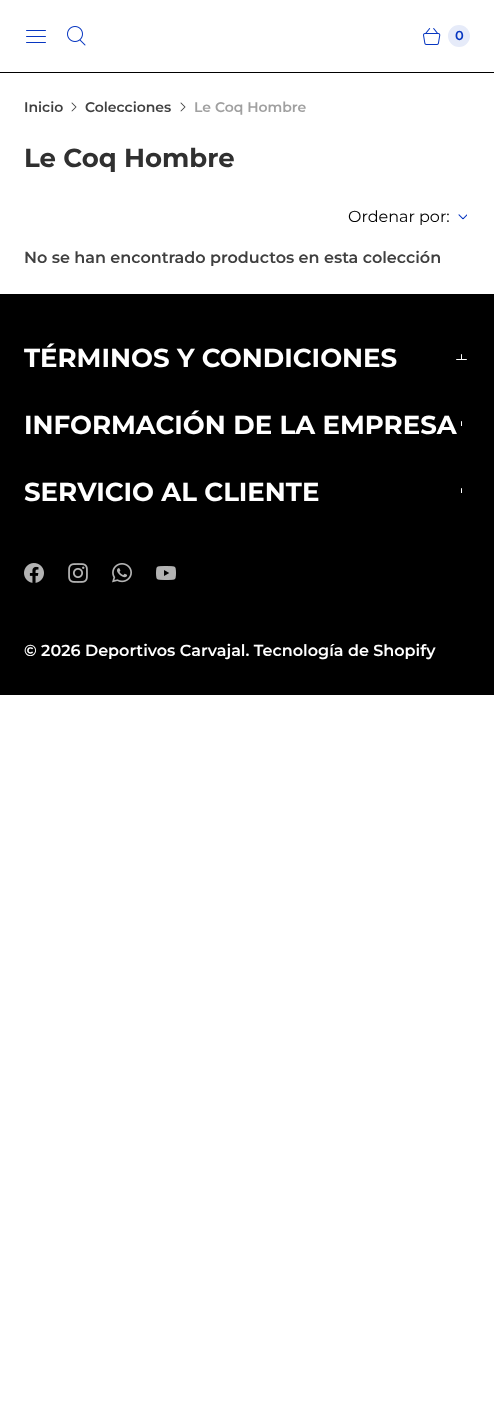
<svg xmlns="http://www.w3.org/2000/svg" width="494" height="1424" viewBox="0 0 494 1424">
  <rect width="100%" height="100%" fill="rgb(255,255,255)"/>
  <rect x="0" y="72" width="494" height="1" fill="rgb(0,0,0)"/>
  <image x="26" y="30" width="20" height="13" href="pic1.png"/>
  <image x="67" y="26" width="19" height="20" href="pic2.png"/>
  <image x="423" y="28" width="18" height="17" href="pic3.png"/>
  <circle cx="459" cy="36" r="11" fill="rgb(230,235,249)"/>
  <text x="455" y="40" font-family="Montserrat" font-size="13" font-weight="600" fill="rgb(7,54,193)">0</text>
  <text x="24" y="112" font-family="Montserrat" font-size="14" font-weight="600" fill="rgb(64,64,64)">Inicio</text>
  <image x="71" y="102" width="6" height="10" href="pic4.png"/>
  <text x="85" y="112" font-family="Montserrat" font-size="14" font-weight="600" fill="rgb(64,64,64)">Colecciones</text>
  <image x="180" y="102" width="6" height="10" href="pic4.png"/>
  <text x="194" y="112" font-family="Montserrat" font-size="14" font-weight="600" fill="rgb(160,160,160)">Le Coq Hombre</text>
  <text x="24" y="167" font-family="Montserrat" font-size="26" font-weight="100" fill="rgb(48,48,48)">Le Coq Hombre</text>
  <text x="348" y="222" font-family="Montserrat" font-size="16" fill="rgb(0,0,0)">Ordenar por:</text>
  <image x="458" y="214" width="9" height="6" href="pic5.png"/>
  <text x="24" y="263" font-family="Montserrat" font-size="16" font-weight="600" fill="rgb(64,64,64)">No se han encontrado productos en esta colección</text>
  <rect x="0" y="294" width="494" height="401" fill="rgb(0,0,0)"/>
  <text x="24" y="367" font-family="Montserrat" font-size="26" font-weight="100" fill="rgb(255,255,255)">TÉRMINOS Y CONDICIONES</text>
  <image x="456" y="354" width="11" height="6" href="pic6.png"/>
  <text x="24" y="434" font-family="Montserrat" font-size="26" font-weight="100" fill="rgb(255,255,255)">INFORMACIÓN DE LA EMPRESA</text>
  <image x="461" y="421" width="1" height="5" href="pic7.png"/>
  <text x="24" y="501" font-family="Montserrat" font-size="26" font-weight="100" fill="rgb(255,255,255)">SERVICIO AL CLIENTE</text>
  <image x="461" y="488" width="1" height="5" href="pic7.png"/>
  <image x="24" y="563" width="20" height="20" href="pic8.png"/>
  <image x="68" y="563" width="20" height="20" href="pic9.png"/>
  <image x="112" y="563" width="20" height="20" href="pic10.png"/>
  <image x="156" y="566" width="20" height="14" href="pic11.png"/>
  <text x="24" y="656" font-family="Montserrat" font-size="16" font-weight="600" fill="rgb(255,255,255)">© 2026 Deportivos Carvajal. Tecnología de Shopify</text>
</svg>
